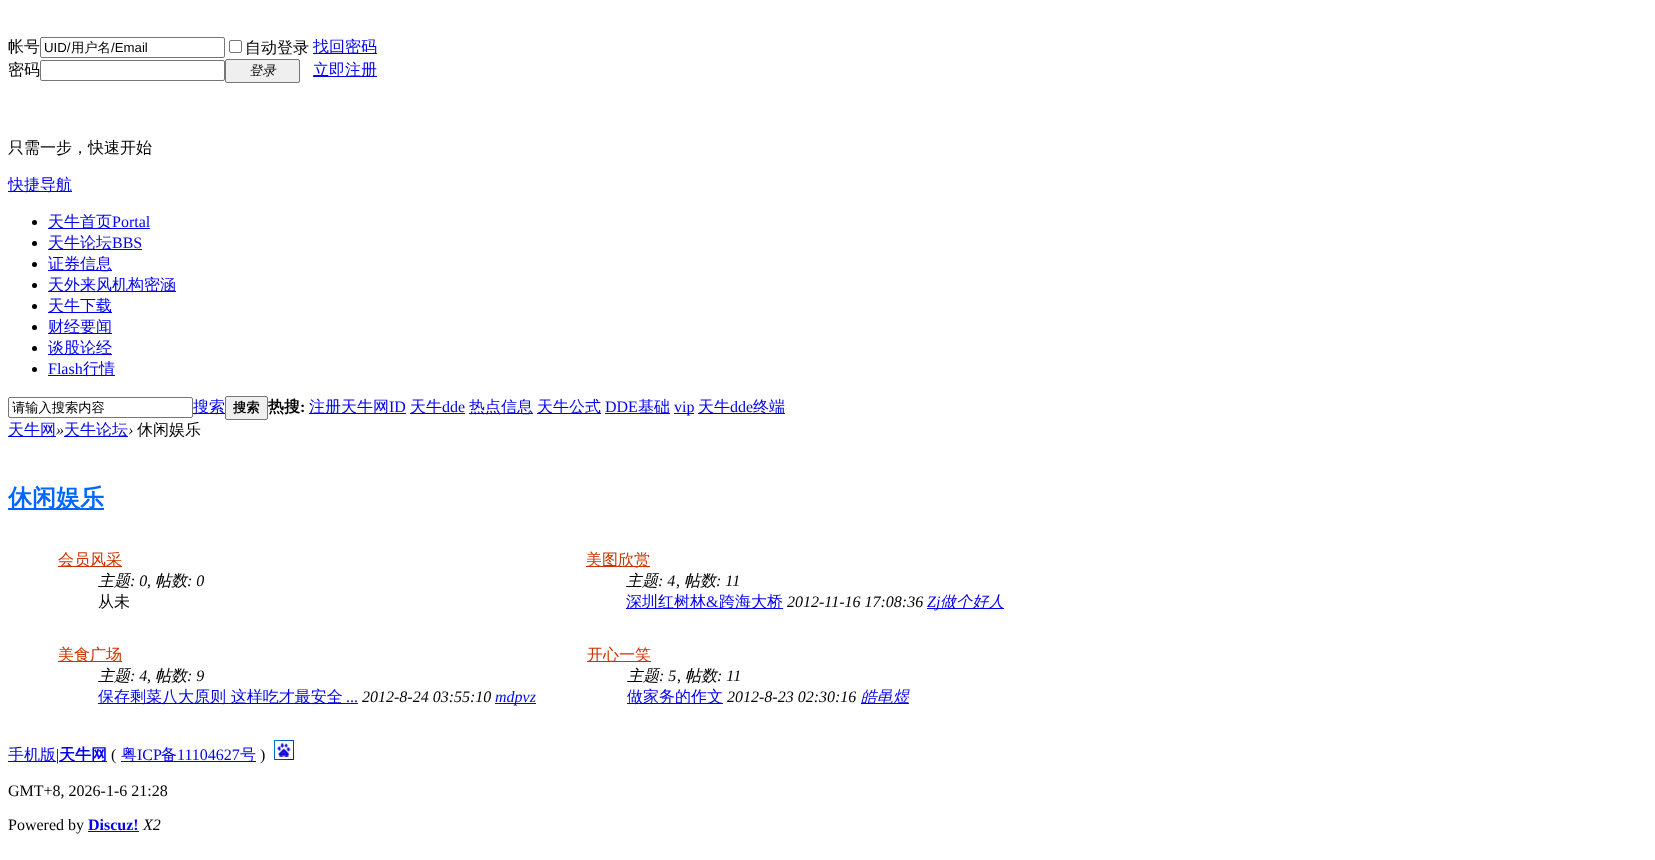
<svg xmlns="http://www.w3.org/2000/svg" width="1655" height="860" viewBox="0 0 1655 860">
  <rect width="100%" height="100%" fill="rgb(255,255,255)"/>
  <text x="8" y="52" font-family="WenQuanYi Zen Hei" font-size="16" font-weight="500" fill="rgb(0,0,0)">帐号</text>
  <rect x="40.5" y="37.5" width="184" height="20" rx="1.5" fill="none" stroke="rgb(118,118,118)"/>
  <text x="44" y="52" font-family="Liberation Sans" font-size="13.25" fill="rgb(0,0,0)">UID/</text>
  <text x="71" y="52" font-family="WenQuanYi Zen Hei" font-size="13.25" font-weight="500" fill="rgb(0,0,0)">用户名</text>
  <text x="111" y="52" font-family="Liberation Sans" font-size="13.25" fill="rgb(0,0,0)">/Email</text>
  <rect x="229.5" y="40.5" width="12" height="12" rx="1.5" fill="none" stroke="rgb(118,118,118)"/>
  <text x="245" y="53" font-family="WenQuanYi Zen Hei" font-size="16" font-weight="500" fill="rgb(0,0,0)">自动登录</text>
  <rect x="313" y="53" width="64" height="1" fill="rgb(0,0,238)"/>
  <text x="313" y="52" font-family="WenQuanYi Zen Hei" font-size="16" font-weight="500" fill="rgb(0,0,238)">找回密码</text>
  <text x="8" y="75" font-family="WenQuanYi Zen Hei" font-size="16" font-weight="500" fill="rgb(0,0,0)">密码</text>
  <rect x="40.5" y="60.5" width="184" height="20" rx="1.5" fill="none" stroke="rgb(118,118,118)"/>
  <rect x="225.5" y="59.5" width="74" height="23" rx="1.5" fill="rgb(239,239,239)" stroke="rgb(118,118,118)"/>
  <text x="249" y="75" font-family="WenQuanYi Zen Hei" font-size="13.25" font-weight="500" font-style="italic" fill="rgb(0,0,0)">登录</text>
  <rect x="313" y="76" width="64" height="1" fill="rgb(0,0,238)"/>
  <text x="313" y="75" font-family="WenQuanYi Zen Hei" font-size="16" font-weight="500" fill="rgb(0,0,238)">立即注册</text>
  <text x="8" y="153" font-family="WenQuanYi Zen Hei" font-size="16" font-weight="500" fill="rgb(0,0,0)">只需一步，快速开始</text>
  <rect x="8" y="191" width="64" height="1" fill="rgb(0,0,238)"/>
  <text x="8" y="190" font-family="WenQuanYi Zen Hei" font-size="16" font-weight="500" fill="rgb(0,0,238)">快捷导航</text>
  <circle cx="34.5" cy="222.5" r="2.5" fill="rgb(0,0,0)"/>
  <rect x="48" y="228" width="102" height="1" fill="rgb(0,0,238)"/>
  <text x="48" y="227" font-family="WenQuanYi Zen Hei" font-size="16" font-weight="500" fill="rgb(0,0,238)">天牛首页</text>
  <text x="112" y="227" font-family="Liberation Serif" font-size="16" fill="rgb(0,0,238)">Portal</text>
  <circle cx="34.5" cy="243.5" r="2.5" fill="rgb(0,0,0)"/>
  <rect x="48" y="249" width="94" height="1" fill="rgb(0,0,238)"/>
  <text x="48" y="248" font-family="WenQuanYi Zen Hei" font-size="16" font-weight="500" fill="rgb(0,0,238)">天牛论坛</text>
  <text x="112" y="248" font-family="Liberation Serif" font-size="16" fill="rgb(0,0,238)">BBS</text>
  <circle cx="34.5" cy="264.5" r="2.5" fill="rgb(0,0,0)"/>
  <rect x="48" y="270" width="64" height="1" fill="rgb(0,0,238)"/>
  <text x="48" y="269" font-family="WenQuanYi Zen Hei" font-size="16" font-weight="500" fill="rgb(0,0,238)">证券信息</text>
  <circle cx="34.5" cy="285.5" r="2.5" fill="rgb(0,0,0)"/>
  <rect x="48" y="291" width="128" height="1" fill="rgb(0,0,238)"/>
  <text x="48" y="290" font-family="WenQuanYi Zen Hei" font-size="16" font-weight="500" fill="rgb(0,0,238)">天外来风机构密涵</text>
  <circle cx="34.5" cy="306.5" r="2.5" fill="rgb(0,0,0)"/>
  <rect x="48" y="312" width="64" height="1" fill="rgb(0,0,238)"/>
  <text x="48" y="311" font-family="WenQuanYi Zen Hei" font-size="16" font-weight="500" fill="rgb(0,0,238)">天牛下载</text>
  <circle cx="34.5" cy="327.5" r="2.5" fill="rgb(0,0,0)"/>
  <rect x="48" y="333" width="64" height="1" fill="rgb(0,0,238)"/>
  <text x="48" y="332" font-family="WenQuanYi Zen Hei" font-size="16" font-weight="500" fill="rgb(0,0,238)">财经要闻</text>
  <circle cx="34.5" cy="348.5" r="2.5" fill="rgb(0,0,0)"/>
  <rect x="48" y="354" width="64" height="1" fill="rgb(0,0,238)"/>
  <text x="48" y="353" font-family="WenQuanYi Zen Hei" font-size="16" font-weight="500" fill="rgb(0,0,238)">谈股论经</text>
  <circle cx="34.5" cy="369.5" r="2.5" fill="rgb(0,0,0)"/>
  <text x="48" y="374" font-family="Liberation Serif" font-size="16" fill="rgb(0,0,238)">Flash</text>
  <rect x="48" y="375" width="67" height="1" fill="rgb(0,0,238)"/>
  <text x="83" y="374" font-family="WenQuanYi Zen Hei" font-size="16" font-weight="500" fill="rgb(0,0,238)">行情</text>
  <rect x="8.5" y="397.5" width="184" height="20" rx="1.5" fill="none" stroke="rgb(118,118,118)"/>
  <text x="12" y="412" font-family="WenQuanYi Zen Hei" font-size="13.25" font-weight="500" fill="rgb(0,0,0)">请输入搜索内容</text>
  <rect x="193" y="413" width="32" height="1" fill="rgb(0,0,238)"/>
  <text x="193" y="412" font-family="WenQuanYi Zen Hei" font-size="16" font-weight="500" fill="rgb(0,0,238)">搜索</text>
  <rect x="225.5" y="396.5" width="42" height="23" rx="1.5" fill="rgb(239,239,239)" stroke="rgb(118,118,118)"/>
  <text x="233" y="412" font-family="WenQuanYi Zen Hei" font-size="13.25" font-weight="bold" fill="rgb(0,0,0)">搜索</text>
  <text x="268" y="412" font-family="WenQuanYi Zen Hei" font-size="16" font-weight="bold" fill="rgb(0,0,0)">热搜</text>
  <text x="300" y="412" font-family="Liberation Serif" font-size="16" font-weight="bold" fill="rgb(0,0,0)">:</text>
  <rect x="309" y="413" width="97" height="1" fill="rgb(0,0,238)"/>
  <text x="309" y="412" font-family="WenQuanYi Zen Hei" font-size="16" font-weight="500" fill="rgb(0,0,238)">注册天牛网</text>
  <text x="389" y="412" font-family="Liberation Serif" font-size="16" fill="rgb(0,0,238)">ID</text>
  <rect x="410" y="413" width="55" height="1" fill="rgb(0,0,238)"/>
  <text x="410" y="412" font-family="WenQuanYi Zen Hei" font-size="16" font-weight="500" fill="rgb(0,0,238)">天牛</text>
  <text x="442" y="412" font-family="Liberation Serif" font-size="16" fill="rgb(0,0,238)">dde</text>
  <rect x="469" y="413" width="64" height="1" fill="rgb(0,0,238)"/>
  <text x="469" y="412" font-family="WenQuanYi Zen Hei" font-size="16" font-weight="500" fill="rgb(0,0,238)">热点信息</text>
  <rect x="537" y="413" width="64" height="1" fill="rgb(0,0,238)"/>
  <text x="537" y="412" font-family="WenQuanYi Zen Hei" font-size="16" font-weight="500" fill="rgb(0,0,238)">天牛公式</text>
  <text x="605" y="412" font-family="Liberation Serif" font-size="16" fill="rgb(0,0,238)">DDE</text>
  <rect x="605" y="413" width="65" height="1" fill="rgb(0,0,238)"/>
  <text x="638" y="412" font-family="WenQuanYi Zen Hei" font-size="16" font-weight="500" fill="rgb(0,0,238)">基础</text>
  <rect x="674" y="413" width="20" height="1" fill="rgb(0,0,238)"/>
  <text x="674" y="412" font-family="Liberation Serif" font-size="16" fill="rgb(0,0,238)">vip</text>
  <rect x="698" y="413" width="87" height="1" fill="rgb(0,0,238)"/>
  <text x="698" y="412" font-family="WenQuanYi Zen Hei" font-size="16" font-weight="500" fill="rgb(0,0,238)">天牛</text>
  <text x="730" y="412" font-family="Liberation Serif" font-size="16" fill="rgb(0,0,238)">dde</text>
  <text x="753" y="412" font-family="WenQuanYi Zen Hei" font-size="16" font-weight="500" fill="rgb(0,0,238)">终端</text>
  <rect x="8" y="436" width="48" height="1" fill="rgb(0,0,238)"/>
  <text x="8" y="435" font-family="WenQuanYi Zen Hei" font-size="16" font-weight="500" fill="rgb(0,0,238)">天牛网</text>
  <text x="56" y="435" font-family="Liberation Serif" font-size="16" font-style="italic" fill="rgb(0,0,0)">»</text>
  <rect x="64" y="436" width="64" height="1" fill="rgb(0,0,238)"/>
  <text x="64" y="435" font-family="WenQuanYi Zen Hei" font-size="16" font-weight="500" fill="rgb(0,0,238)">天牛论坛</text>
  <text x="128" y="435" font-family="Liberation Serif" font-size="16" font-style="italic" fill="rgb(0,0,0)">›</text>
  <text x="137" y="435" font-family="WenQuanYi Zen Hei" font-size="16" font-weight="500" fill="rgb(0,0,0)">休闲娱乐</text>
  <rect x="8" y="508" width="96" height="2" fill="rgb(0,102,255)"/>
  <text x="8" y="506" font-family="WenQuanYi Zen Hei" font-size="24" font-weight="bold" fill="rgb(0,102,255)">休闲娱乐</text>
  <rect x="58" y="566" width="64" height="1" fill="rgb(204,51,0)"/>
  <text x="58" y="565" font-family="WenQuanYi Zen Hei" font-size="16" font-weight="500" fill="rgb(204,51,0)">会员风采</text>
  <text x="98" y="586" font-family="WenQuanYi Zen Hei" font-size="16" font-weight="500" font-style="italic" fill="rgb(0,0,0)">主题</text>
  <text x="130" y="586" font-family="Liberation Serif" font-size="16" font-style="italic" fill="rgb(0,0,0)">: 0</text>
  <text x="147" y="586" font-family="Liberation Serif" font-size="16" fill="rgb(0,0,0)">,</text>
  <text x="155" y="586" font-family="WenQuanYi Zen Hei" font-size="16" font-weight="500" font-style="italic" fill="rgb(0,0,0)">帖数</text>
  <text x="187" y="586" font-family="Liberation Serif" font-size="16" font-style="italic" fill="rgb(0,0,0)">: 0</text>
  <text x="98" y="607" font-family="WenQuanYi Zen Hei" font-size="16" font-weight="500" fill="rgb(0,0,0)">从未</text>
  <rect x="586" y="566" width="64" height="1" fill="rgb(204,51,0)"/>
  <text x="586" y="565" font-family="WenQuanYi Zen Hei" font-size="16" font-weight="500" fill="rgb(204,51,0)">美图欣赏</text>
  <text x="626" y="586" font-family="WenQuanYi Zen Hei" font-size="16" font-weight="500" font-style="italic" fill="rgb(0,0,0)">主题</text>
  <text x="658" y="586" font-family="Liberation Serif" font-size="16" font-style="italic" fill="rgb(0,0,0)">: 4</text>
  <text x="676" y="586" font-family="Liberation Serif" font-size="16" fill="rgb(0,0,0)">,</text>
  <text x="684" y="586" font-family="WenQuanYi Zen Hei" font-size="16" font-weight="500" font-style="italic" fill="rgb(0,0,0)">帖数</text>
  <text x="716" y="586" font-family="Liberation Serif" font-size="16" font-style="italic" fill="rgb(0,0,0)">: 11</text>
  <rect x="626" y="608" width="157" height="1" fill="rgb(0,0,238)"/>
  <text x="626" y="607" font-family="WenQuanYi Zen Hei" font-size="16" font-weight="500" fill="rgb(0,0,238)">深圳红树林</text>
  <text x="706" y="607" font-family="Liberation Serif" font-size="16" fill="rgb(0,0,238)">&amp;</text>
  <text x="719" y="607" font-family="WenQuanYi Zen Hei" font-size="16" font-weight="500" fill="rgb(0,0,238)">跨海大桥</text>
  <text x="787" y="607" font-family="Liberation Serif" font-size="16" font-style="italic" fill="rgb(0,0,0)">2012-11-16 17:08:36</text>
  <rect x="927" y="608" width="77" height="1" fill="rgb(0,0,238)"/>
  <text x="927" y="607" font-family="Liberation Serif" font-size="16" font-style="italic" fill="rgb(0,0,238)">Zj</text>
  <text x="940" y="607" font-family="WenQuanYi Zen Hei" font-size="16" font-weight="500" font-style="italic" fill="rgb(0,0,238)">做个好人</text>
  <rect x="58" y="661" width="64" height="1" fill="rgb(204,51,0)"/>
  <text x="58" y="660" font-family="WenQuanYi Zen Hei" font-size="16" font-weight="500" fill="rgb(204,51,0)">美食广场</text>
  <text x="98" y="681" font-family="WenQuanYi Zen Hei" font-size="16" font-weight="500" font-style="italic" fill="rgb(0,0,0)">主题</text>
  <text x="130" y="681" font-family="Liberation Serif" font-size="16" font-style="italic" fill="rgb(0,0,0)">: 4</text>
  <text x="147" y="681" font-family="Liberation Serif" font-size="16" fill="rgb(0,0,0)">,</text>
  <text x="155" y="681" font-family="WenQuanYi Zen Hei" font-size="16" font-weight="500" font-style="italic" fill="rgb(0,0,0)">帖数</text>
  <text x="187" y="681" font-family="Liberation Serif" font-size="16" font-style="italic" fill="rgb(0,0,0)">: 9</text>
  <rect x="98" y="703" width="260" height="1" fill="rgb(0,0,238)"/>
  <text x="98" y="702" font-family="WenQuanYi Zen Hei" font-size="16" font-weight="500" fill="rgb(0,0,238)">保存剩菜八大原则 这样吃才最安全</text>
  <text x="346" y="702" font-family="Liberation Serif" font-size="16" fill="rgb(0,0,238)">...</text>
  <text x="362" y="702" font-family="Liberation Serif" font-size="16" font-style="italic" fill="rgb(0,0,0)">2012-8-24 03:55:10</text>
  <rect x="495" y="703" width="41" height="1" fill="rgb(0,0,238)"/>
  <text x="495" y="702" font-family="Liberation Serif" font-size="16" font-style="italic" fill="rgb(0,0,238)">mdpvz</text>
  <rect x="587" y="661" width="64" height="1" fill="rgb(204,51,0)"/>
  <text x="587" y="660" font-family="WenQuanYi Zen Hei" font-size="16" font-weight="500" fill="rgb(204,51,0)">开心一笑</text>
  <text x="627" y="681" font-family="WenQuanYi Zen Hei" font-size="16" font-weight="500" font-style="italic" fill="rgb(0,0,0)">主题</text>
  <text x="659" y="681" font-family="Liberation Serif" font-size="16" font-style="italic" fill="rgb(0,0,0)">: 5</text>
  <text x="677" y="681" font-family="Liberation Serif" font-size="16" fill="rgb(0,0,0)">,</text>
  <text x="685" y="681" font-family="WenQuanYi Zen Hei" font-size="16" font-weight="500" font-style="italic" fill="rgb(0,0,0)">帖数</text>
  <text x="717" y="681" font-family="Liberation Serif" font-size="16" font-style="italic" fill="rgb(0,0,0)">: 11</text>
  <rect x="627" y="703" width="96" height="1" fill="rgb(0,0,238)"/>
  <text x="627" y="702" font-family="WenQuanYi Zen Hei" font-size="16" font-weight="500" fill="rgb(0,0,238)">做家务的作文</text>
  <text x="727" y="702" font-family="Liberation Serif" font-size="16" font-style="italic" fill="rgb(0,0,0)">2012-8-23 02:30:16</text>
  <rect x="861" y="703" width="48" height="1" fill="rgb(0,0,238)"/>
  <text x="861" y="702" font-family="WenQuanYi Zen Hei" font-size="16" font-weight="500" font-style="italic" fill="rgb(0,0,238)">皓黾煜</text>
  <rect x="8" y="761" width="48" height="1" fill="rgb(0,0,238)"/>
  <text x="8" y="760" font-family="WenQuanYi Zen Hei" font-size="16" font-weight="500" fill="rgb(0,0,238)">手机版</text>
  <text x="56" y="760" font-family="Liberation Serif" font-size="16" fill="rgb(0,0,0)">|</text>
  <rect x="59" y="761" width="48" height="1" fill="rgb(0,0,238)"/>
  <text x="59" y="760" font-family="WenQuanYi Zen Hei" font-size="16" font-weight="bold" fill="rgb(0,0,238)">天牛网</text>
  <text x="111" y="760" font-family="Liberation Serif" font-size="16" fill="rgb(0,0,0)">(</text>
  <rect x="121" y="761" width="135" height="1" fill="rgb(0,0,238)"/>
  <text x="121" y="760" font-family="WenQuanYi Zen Hei" font-size="16" font-weight="500" fill="rgb(0,0,238)">粤</text>
  <text x="137" y="760" font-family="Liberation Serif" font-size="16" fill="rgb(0,0,238)">ICP</text>
  <text x="161" y="760" font-family="WenQuanYi Zen Hei" font-size="16" font-weight="500" fill="rgb(0,0,238)">备</text>
  <text x="177" y="760" font-family="Liberation Serif" font-size="16" fill="rgb(0,0,238)">11104627</text>
  <text x="240" y="760" font-family="WenQuanYi Zen Hei" font-size="16" font-weight="500" fill="rgb(0,0,238)">号</text>
  <text x="260" y="760" font-family="Liberation Serif" font-size="16" fill="rgb(0,0,0)">)</text>
  <image x="274" y="740" width="20" height="20" href="pic1.png"/>
  <g font-family="Liberation Serif" font-size="16" fill="rgb(0,0,0)">
    <text x="8" y="796">GMT+8, 2026-1-6 21:28</text>
    <text x="8" y="830">Powered by</text>
  </g>
  <text x="88" y="830" font-family="Liberation Serif" font-size="16" font-weight="bold" fill="rgb(0,0,238)">Discuz!</text>
  <rect x="88" y="831" width="51" height="1" fill="rgb(0,0,238)"/>
  <text x="143" y="830" font-family="Liberation Serif" font-size="16" font-style="italic" fill="rgb(0,0,0)">X2</text>
</svg>
